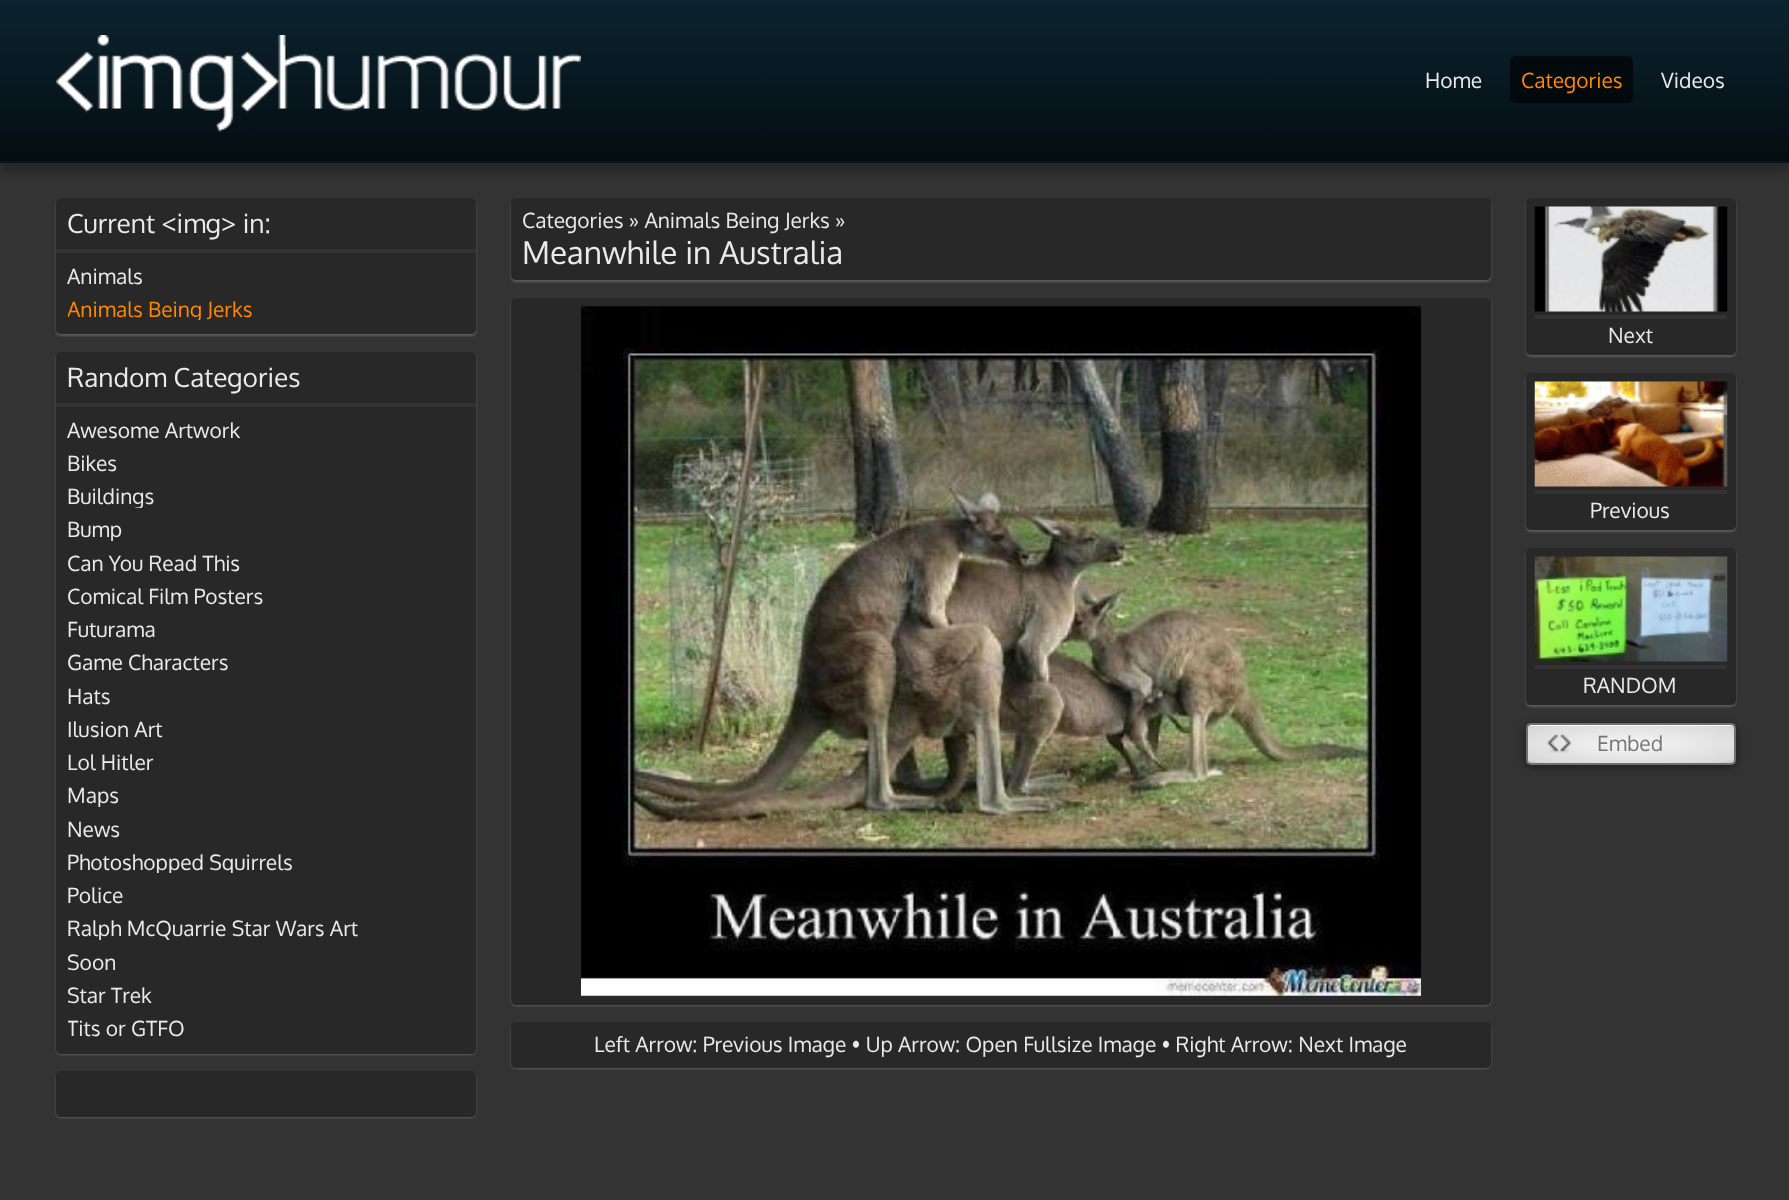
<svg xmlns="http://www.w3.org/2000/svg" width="1789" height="1200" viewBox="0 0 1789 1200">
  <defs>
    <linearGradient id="g1" gradientUnits="userSpaceOnUse" x1="895" y1="0" x2="895" y2="161"><stop offset="0" stop-color="rgb(12,36,48)"/><stop offset="1" stop-color="rgb(4,13,17)"/></linearGradient>
    <clipPath id="clip1"><path d="M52 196H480V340H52ZM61 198H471C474 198 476 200 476 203V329C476 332 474 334 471 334H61C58 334 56 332 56 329V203C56 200 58 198 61 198Z" clip-rule="evenodd"/></clipPath>
    <clipPath id="clip2"><rect x="68" y="299" width="315" height="21"/></clipPath>
    <clipPath id="clip3"><path d="M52 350H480V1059H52ZM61 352H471C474 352 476 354 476 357V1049C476 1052 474 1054 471 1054H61C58 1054 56 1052 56 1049V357C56 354 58 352 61 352Z" clip-rule="evenodd"/></clipPath>
    <clipPath id="clip4"><rect x="68" y="487" width="315" height="21"/></clipPath>
    <clipPath id="clip5"><rect x="68" y="520" width="315" height="21"/></clipPath>
    <clipPath id="clip6"><rect x="68" y="786" width="315" height="21"/></clipPath>
    <clipPath id="clip7"><rect x="68" y="852" width="315" height="21"/></clipPath>
    <clipPath id="clip8"><rect x="68" y="919" width="315" height="21"/></clipPath>
    <clipPath id="clip9"><rect x="68" y="1019" width="315" height="21"/></clipPath>
    <clipPath id="clip10"><path d="M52 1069H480V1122H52ZM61 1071H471C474 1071 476 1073 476 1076V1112C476 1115 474 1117 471 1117H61C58 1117 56 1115 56 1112V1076C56 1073 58 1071 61 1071Z" clip-rule="evenodd"/></clipPath>
    <clipPath id="clip11"><path d="M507 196H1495V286H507ZM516 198H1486C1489 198 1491 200 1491 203V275C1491 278 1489 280 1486 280H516C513 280 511 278 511 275V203C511 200 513 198 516 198Z" clip-rule="evenodd"/></clipPath>
    <clipPath id="clip12"><path d="M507 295H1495V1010H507ZM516 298H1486C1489 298 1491 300 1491 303V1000C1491 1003 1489 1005 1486 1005H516C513 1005 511 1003 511 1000V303C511 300 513 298 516 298Z" clip-rule="evenodd"/></clipPath>
    <clipPath id="clip13"><path d="M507 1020H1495V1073H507ZM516 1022H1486C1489 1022 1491 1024 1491 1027V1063C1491 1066 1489 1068 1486 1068H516C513 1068 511 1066 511 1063V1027C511 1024 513 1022 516 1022Z" clip-rule="evenodd"/></clipPath>
    <clipPath id="clip14"><path d="M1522 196H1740V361H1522ZM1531 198H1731C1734 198 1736 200 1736 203V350C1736 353 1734 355 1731 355H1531C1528 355 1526 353 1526 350V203C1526 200 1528 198 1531 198Z" clip-rule="evenodd"/></clipPath>
    <clipPath id="clip15"><path d="M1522 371H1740V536H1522ZM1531 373H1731C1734 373 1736 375 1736 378V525C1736 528 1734 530 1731 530H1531C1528 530 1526 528 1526 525V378C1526 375 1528 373 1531 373Z" clip-rule="evenodd"/></clipPath>
    <clipPath id="clip16"><path d="M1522 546H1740V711H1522ZM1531 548H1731C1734 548 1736 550 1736 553V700C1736 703 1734 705 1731 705H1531C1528 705 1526 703 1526 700V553C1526 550 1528 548 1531 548Z" clip-rule="evenodd"/></clipPath>
    <clipPath id="clip17"><rect x="1526" y="723" width="210" height="42" rx="5"/></clipPath>
    <radialGradient id="g2" gradientUnits="userSpaceOnUse" cx="0" cy="0" r="1" gradientTransform="matrix(146 0 0 27 1425 705)"><stop offset="0" stop-color="rgb(252,252,252)"/><stop offset="0.03" stop-color="rgb(247,247,247)"/><stop offset="0.12" stop-color="rgb(242,242,242)"/><stop offset="0.9" stop-color="rgb(217,217,217)"/><stop offset="1" stop-color="rgb(191,191,191)"/></radialGradient>
    <radialGradient id="g3" gradientUnits="userSpaceOnUse" cx="0" cy="0" r="1" gradientTransform="matrix(146 0 0 27 1838 705)"><stop offset="0" stop-color="rgb(252,252,252)"/><stop offset="0.03" stop-color="rgb(247,247,247)"/><stop offset="0.12" stop-color="rgb(242,242,242)"/><stop offset="0.9" stop-color="rgb(217,217,217)"/><stop offset="1" stop-color="rgb(191,191,191)"/></radialGradient>
    <radialGradient id="g4" gradientUnits="userSpaceOnUse" cx="0" cy="0" r="1" gradientTransform="matrix(146 0 0 27 1631 744)"><stop offset="0" stop-color="rgb(252,252,252)"/><stop offset="0.03" stop-color="rgb(247,247,247)"/><stop offset="0.12" stop-color="rgb(242,242,242)"/><stop offset="0.9" stop-color="rgb(217,217,217)"/><stop offset="1" stop-color="rgb(191,191,191)"/></radialGradient>
    <radialGradient id="g5" gradientUnits="userSpaceOnUse" cx="0" cy="0" r="1" gradientTransform="matrix(146 0 0 27 1425 782)"><stop offset="0" stop-color="rgb(252,252,252)"/><stop offset="0.03" stop-color="rgb(247,247,247)"/><stop offset="0.12" stop-color="rgb(242,242,242)"/><stop offset="0.9" stop-color="rgb(217,217,217)"/><stop offset="1" stop-color="rgb(191,191,191)"/></radialGradient>
    <radialGradient id="g6" gradientUnits="userSpaceOnUse" cx="0" cy="0" r="1" gradientTransform="matrix(146 0 0 27 1838 782)"><stop offset="0" stop-color="rgb(252,252,252)"/><stop offset="0.03" stop-color="rgb(247,247,247)"/><stop offset="0.12" stop-color="rgb(242,242,242)"/><stop offset="0.9" stop-color="rgb(217,217,217)"/><stop offset="1" stop-color="rgb(191,191,191)"/></radialGradient>
  </defs>
  <rect width="100%" height="100%" fill="rgb(51,51,51)"/>
  <rect x="0" y="9" width="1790" height="163" fill="rgba(10,10,10,0.3)" filter="blur(4.5px)"/>
  <rect x="0" y="0" width="1789" height="161" fill="url(#g1)"/>
  <rect x="0" y="161" width="1789" height="2" fill="rgb(6,21,28)"/>
  <image x="56" y="35" width="525" height="97" href="pic1.png"/>
  <text x="1425" y="88" font-family="Oxygen" font-size="21" fill="rgb(234,234,234)">Home</text>
  <rect x="1510" y="56" width="123" height="47" rx="5" fill="rgba(0,0,0,0.6)"/>
  <text x="1521" y="88" font-family="Oxygen" font-size="21" fill="rgb(255,136,0)">Categories</text>
  <text x="1661" y="88" font-family="Oxygen" font-size="21" fill="rgb(234,234,234)">Videos</text>
  <g clip-path="url(#clip1)">
    <rect x="56" y="200" width="420" height="136" rx="5" fill="rgba(255,255,255,0.2)" filter="blur(1px)"/>
  </g>
  <rect x="56" y="198" width="420" height="136" rx="5" fill="rgba(0,0,0,0.2)"/>
  <rect x="56" y="249" width="420" height="4" fill="rgb(51,51,51)"/>
  <text x="67" y="233" font-family="Oxygen" font-size="26.25" fill="rgb(234,234,234)">Current &lt;img&gt; in:</text>
  <text x="67" y="284" font-family="Oxygen" font-size="21" fill="rgb(234,234,234)">Animals</text>
  <g clip-path="url(#clip2)">
    <text x="67" y="317" font-family="Oxygen" font-size="21" fill="rgb(255,136,0)">Animals Being Jerks</text>
  </g>
  <g clip-path="url(#clip3)">
    <rect x="56" y="354" width="420" height="701" rx="5" fill="rgba(255,255,255,0.2)" filter="blur(1px)"/>
  </g>
  <rect x="56" y="352" width="420" height="702" rx="5" fill="rgba(0,0,0,0.2)"/>
  <rect x="56" y="403" width="420" height="4" fill="rgb(51,51,51)"/>
  <text x="67" y="387" font-family="Oxygen" font-size="26.25" fill="rgb(234,234,234)">Random Categories</text>
  <g font-family="Oxygen" font-size="21" fill="rgb(234,234,234)">
    <text>
      <tspan x="67" y="438">Awesome Artwork</tspan>
      <tspan x="67" y="471">Bikes</tspan>
    </text>
  </g>
  <g clip-path="url(#clip4)">
    <text x="67" y="504" font-family="Oxygen" font-size="21" fill="rgb(234,234,234)">Buildings</text>
  </g>
  <g clip-path="url(#clip5)">
    <text x="67" y="537" font-family="Oxygen" font-size="21" fill="rgb(234,234,234)">Bump</text>
  </g>
  <g font-family="Oxygen" font-size="21" fill="rgb(234,234,234)">
    <text>
      <tspan x="67" y="571">Can You Read This</tspan>
      <tspan x="67" y="604">Comical Film Posters</tspan>
      <tspan x="67" y="637">Futurama</tspan>
      <tspan x="67" y="670">Game Characters</tspan>
      <tspan x="67" y="704">Hats</tspan>
      <tspan x="67" y="737">Ilusion Art</tspan>
      <tspan x="67" y="770">Lol Hitler</tspan>
    </text>
  </g>
  <g clip-path="url(#clip6)">
    <text x="67" y="803" font-family="Oxygen" font-size="21" fill="rgb(234,234,234)">Maps</text>
  </g>
  <text x="67" y="837" font-family="Oxygen" font-size="21" fill="rgb(234,234,234)">News</text>
  <g clip-path="url(#clip7)">
    <text x="67" y="870" font-family="Oxygen" font-size="21" fill="rgb(234,234,234)">Photoshopped Squirrels</text>
  </g>
  <text x="67" y="903" font-family="Oxygen" font-size="21" fill="rgb(234,234,234)">Police</text>
  <g clip-path="url(#clip8)">
    <text x="67" y="936" font-family="Oxygen" font-size="21" fill="rgb(234,234,234)">Ralph McQuarrie Star Wars Art</text>
  </g>
  <g font-family="Oxygen" font-size="21" fill="rgb(234,234,234)">
    <text>
      <tspan x="67" y="970">Soon</tspan>
      <tspan x="67" y="1003">Star Trek</tspan>
    </text>
  </g>
  <g clip-path="url(#clip9)">
    <text x="67" y="1036" font-family="Oxygen" font-size="21" fill="rgb(234,234,234)">Tits or GTFO</text>
  </g>
  <g clip-path="url(#clip10)">
    <rect x="56" y="1073" width="420" height="45" rx="5" fill="rgba(255,255,255,0.2)" filter="blur(1px)"/>
  </g>
  <rect x="56" y="1071" width="420" height="46" rx="5" fill="rgba(0,0,0,0.2)"/>
  <g clip-path="url(#clip11)">
    <rect x="511" y="200" width="980" height="82" rx="5" fill="rgba(255,255,255,0.2)" filter="blur(1px)"/>
  </g>
  <rect x="511" y="198" width="980" height="82" rx="5" fill="rgba(0,0,0,0.2)"/>
  <text x="522" y="228" font-family="Oxygen" font-size="21" fill="rgb(234,234,234)">Categories » Animals Being Jerks »</text>
  <text x="522" y="264" font-family="Oxygen" font-size="31.5" fill="rgb(234,234,234)">Meanwhile in Australia</text>
  <g clip-path="url(#clip12)">
    <rect x="511" y="299" width="980" height="707" rx="5" fill="rgba(255,255,255,0.2)" filter="blur(1px)"/>
  </g>
  <rect x="511" y="298" width="980" height="707" rx="5" fill="rgba(0,0,0,0.2)"/>
  <image x="581" y="306" width="840" height="690" href="pic2.png"/>
  <g clip-path="url(#clip13)">
    <rect x="511" y="1024" width="980" height="45" rx="5" fill="rgba(255,255,255,0.2)" filter="blur(1px)"/>
  </g>
  <rect x="511" y="1022" width="980" height="46" rx="5" fill="rgba(0,0,0,0.2)"/>
  <text x="594" y="1052" font-family="Oxygen" font-size="21" fill="rgb(234,234,234)">Left Arrow: Previous Image • Up Arrow: Open Fullsize Image • Right Arrow: Next Image</text>
  <g clip-path="url(#clip14)">
    <rect x="1526" y="200" width="210" height="157" rx="5" fill="rgba(255,255,255,0.2)" filter="blur(1px)"/>
  </g>
  <rect x="1526" y="198" width="210" height="157" rx="5" fill="rgba(0,0,0,0.2)"/>
  <image x="1534" y="206" width="194" height="106" href="pic3.png"/>
  <rect x="1535" y="315" width="192" height="4" fill="rgb(51,51,51)"/>
  <text x="1608" y="343" font-family="Oxygen" font-size="21" fill="rgb(234,234,234)">Next</text>
  <g clip-path="url(#clip15)">
    <rect x="1526" y="375" width="210" height="157" rx="5" fill="rgba(255,255,255,0.2)" filter="blur(1px)"/>
  </g>
  <rect x="1526" y="373" width="210" height="157" rx="5" fill="rgba(0,0,0,0.2)"/>
  <image x="1534" y="381" width="194" height="106" href="pic4.png"/>
  <rect x="1535" y="490" width="192" height="4" fill="rgb(51,51,51)"/>
  <text x="1590" y="518" font-family="Oxygen" font-size="21" fill="rgb(234,234,234)">Previous</text>
  <g clip-path="url(#clip16)">
    <rect x="1526" y="550" width="210" height="157" rx="5" fill="rgba(255,255,255,0.2)" filter="blur(1px)"/>
  </g>
  <rect x="1526" y="548" width="210" height="157" rx="5" fill="rgba(0,0,0,0.2)"/>
  <image x="1534" y="556" width="194" height="106" href="pic5.png"/>
  <rect x="1535" y="665" width="192" height="4" fill="rgb(51,51,51)"/>
  <text x="1583" y="693" font-family="Oxygen" font-size="21" fill="rgb(234,234,234)">RANDOM</text>
  <rect x="1526" y="725" width="210" height="42" rx="5" fill="rgba(0,0,0,0.45)" filter="blur(4.5px)"/>
  <g clip-path="url(#clip17)">
    <rect x="1526" y="724" width="2" height="1" fill="url(#g2)"/>
    <rect x="1734" y="724" width="2" height="1" fill="url(#g3)"/>
  </g>
  <rect x="1528" y="725" width="206" height="38" fill="url(#g4)"/>
  <g clip-path="url(#clip17)">
    <rect x="1526" y="763" width="2" height="1" fill="url(#g5)"/>
    <rect x="1734" y="763" width="2" height="1" fill="url(#g6)"/>
  </g>
  <path d="M1531 726H1731C1733 726 1734 728 1734 730V729C1734 727 1732 725 1730 725H1532C1530 725 1528 727 1528 729V730C1528 728 1529 726 1531 726Z" fill="rgb(255,255,255)"/>
  <rect x="1527" y="724" width="208" height="40" rx="4" fill="none" stroke="rgb(112,112,112)" stroke-width="2"/>
  <image x="1546" y="734" width="26" height="19" href="pic6.png"/>
  <text x="1597" y="751" font-family="Oxygen" font-size="21" fill="rgb(119,119,119)">Embed</text>
</svg>
